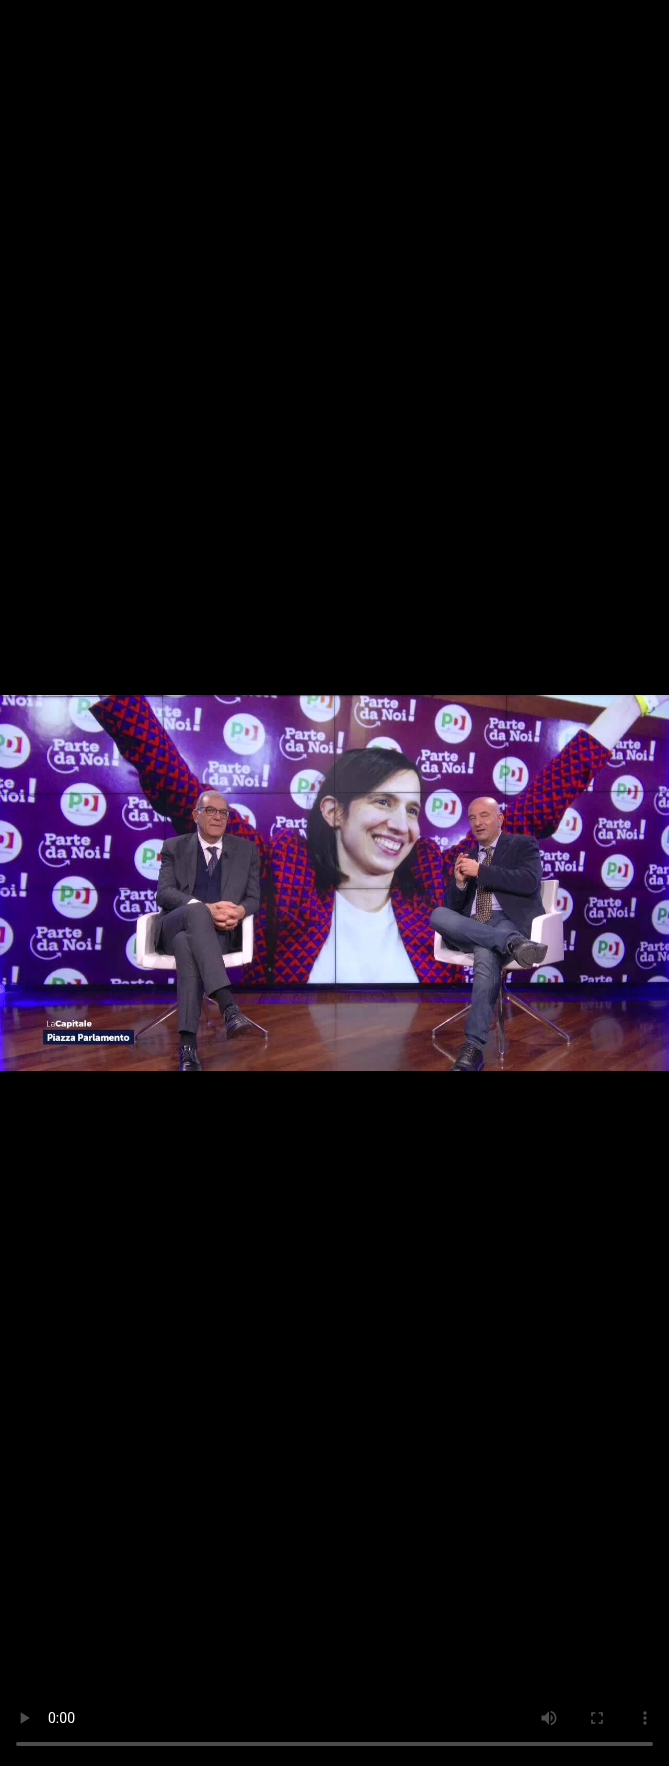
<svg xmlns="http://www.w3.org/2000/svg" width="669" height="1766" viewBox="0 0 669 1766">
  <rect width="100%" height="100%" fill="rgb(0,0,0)"/>
  <image x="0" y="695" width="669" height="1051" href="pic1.png"/>
</svg>
